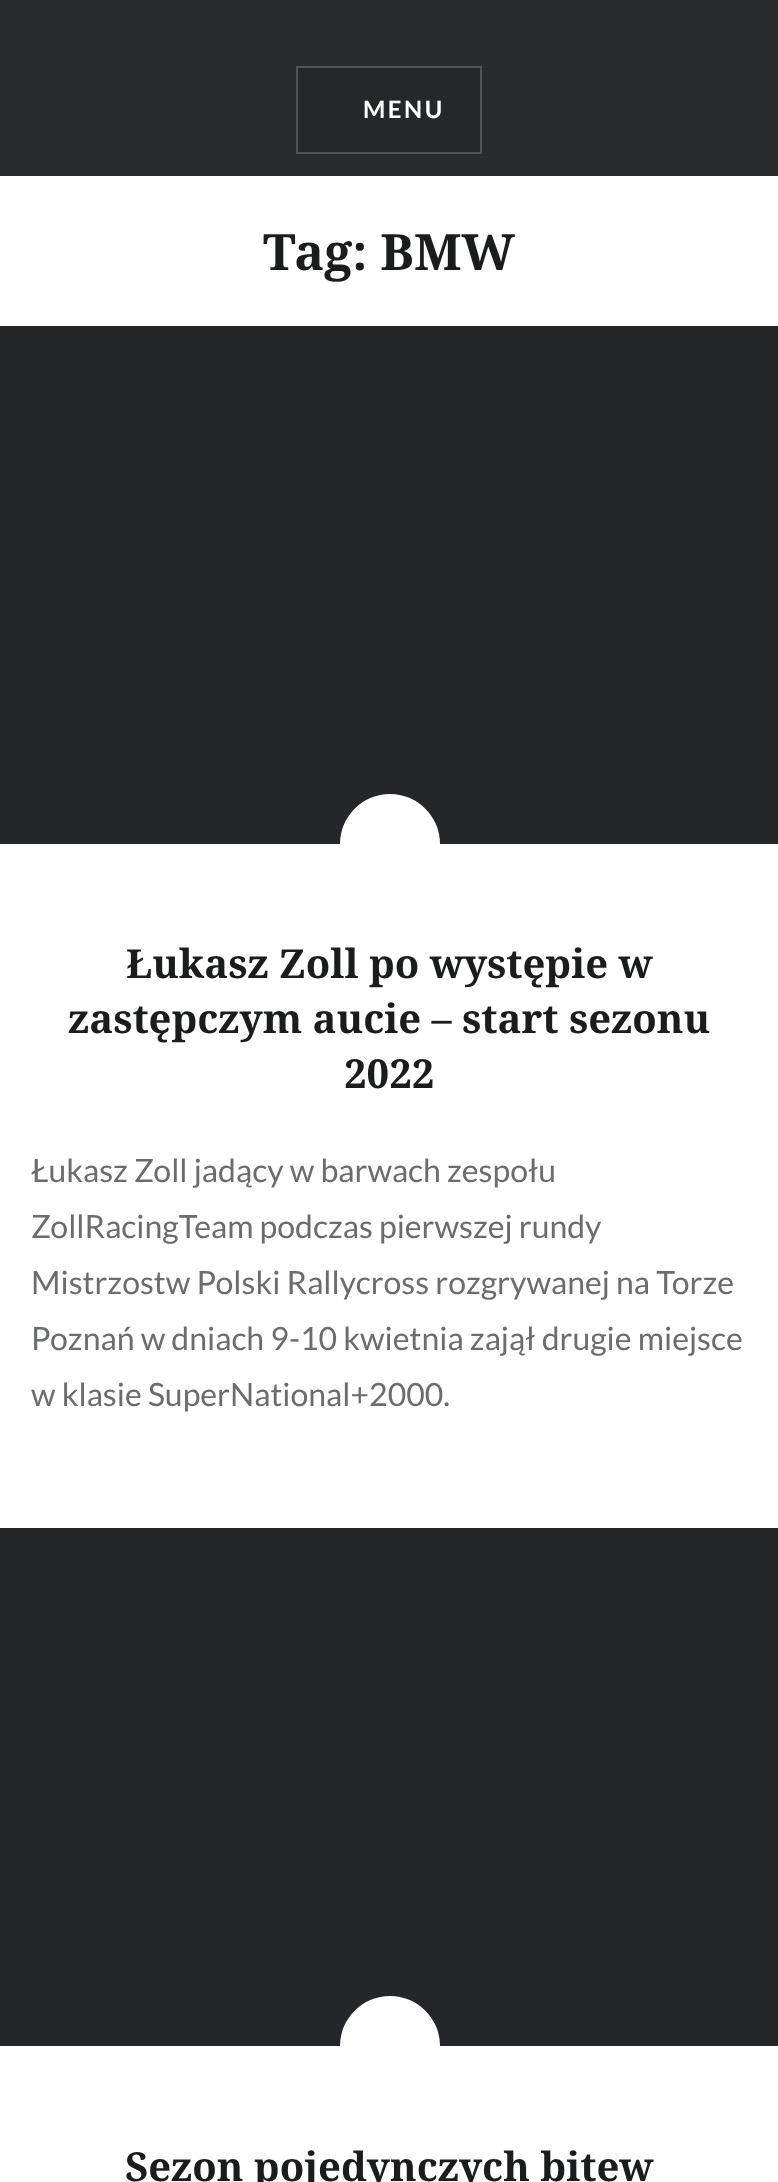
<svg xmlns="http://www.w3.org/2000/svg" width="778" height="2182" viewBox="0 0 778 2182">
  <rect width="100%" height="100%" fill="rgb(255,255,255)"/>
  <rect x="0" y="0" width="778" height="176" fill="rgb(41,44,47)"/>
  <rect x="297" y="67" width="184" height="86" fill="rgb(37,40,42)" stroke="rgb(81,83,85)" stroke-width="2"/>
  <text x="363" y="118" font-family="Lato" font-size="24" font-weight="bold" letter-spacing="2.5" fill="rgb(255,255,255)">MENU</text>
  <text x="263" y="270" font-family="Noto Serif" font-size="50" font-weight="bold" fill="rgb(26,28,30)">Tag: BMW</text>
  <rect x="0" y="326" width="778" height="518" fill="rgb(36,38,41)"/>
  <circle cx="390" cy="844" r="50" fill="rgb(255,255,255)"/>
  <g font-family="Noto Serif" font-size="40" font-weight="bold" fill="rgb(26,28,30)">
    <text x="126" y="978">Łukasz Zoll po występie w</text>
    <text x="68" y="1033">zastępczym aucie – start sezonu</text>
    <text x="344" y="1088">2022</text>
  </g>
  <g font-family="Lato" font-size="32" fill="rgb(106,108,110)">
    <text>
      <tspan x="31" y="1182">Łukasz Zoll jadący w barwach zespołu</tspan>
      <tspan x="31" y="1238">ZollRacingTeam podczas pierwszej rundy</tspan>
      <tspan x="31" y="1294">Mistrzostw Polski Rallycross rozgrywanej na Torze</tspan>
      <tspan x="31" y="1350">Poznań w dniach 9-10 kwietnia zajął drugie miejsce</tspan>
      <tspan x="31" y="1406">w klasie SuperNational+2000.</tspan>
    </text>
  </g>
  <rect x="0" y="1528" width="778" height="518" fill="rgb(36,38,41)"/>
  <circle cx="390" cy="2046" r="50" fill="rgb(255,255,255)"/>
  <text x="125" y="2181" font-family="Noto Serif" font-size="40" font-weight="bold" fill="rgb(26,28,30)">Sezon pojedynczych bitew</text>
</svg>
